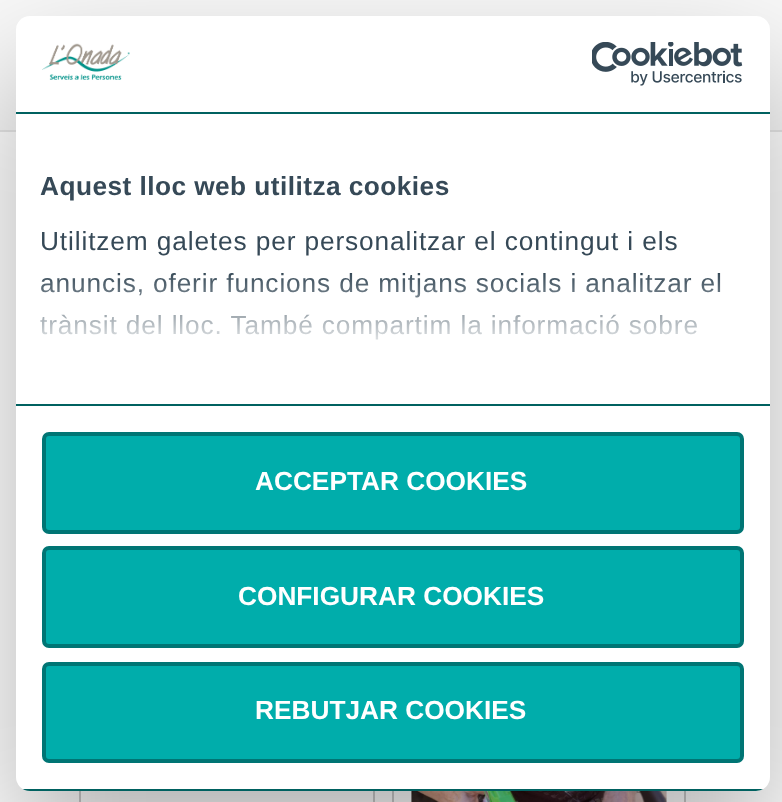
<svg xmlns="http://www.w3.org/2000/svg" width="782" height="802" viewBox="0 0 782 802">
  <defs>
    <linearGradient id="g1" gradientUnits="userSpaceOnUse" x1="381" y1="403" x2="381" y2="272"><stop offset="0" stop-color="rgb(255,255,255)"/><stop offset="0.5" stop-color="rgb(255,255,255)" stop-opacity="0.8"/><stop offset="1" stop-color="rgb(255,255,255)" stop-opacity="0"/></linearGradient>
    <clipPath id="clip1"><rect x="16" y="16" width="754" height="775" rx="14"/></clipPath>
  </defs>
  <rect width="100%" height="100%" fill="rgb(255,255,255)"/>
  <rect x="0" y="0" width="782" height="130" fill="rgb(248,248,248)"/>
  <rect x="0" y="130" width="782" height="2" fill="rgb(231,231,231)"/>
  <rect x="80" y="503" width="294" height="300" fill="none" stroke="rgb(204,204,204)" stroke-width="2"/>
  <rect x="393" y="503" width="292" height="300" fill="none" stroke="rgb(204,204,204)" stroke-width="2"/>
  <image x="411" y="791" width="256" height="11" href="pic3.png"/>
  <rect x="16" y="72" width="754" height="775" rx="14" fill="rgba(0,0,0,0.3)" filter="blur(59.5px)"/>
  <rect x="16" y="16" width="754" height="775" rx="14" fill="rgb(255,255,255)"/>
  <rect x="16" y="112" width="754" height="2" fill="rgb(0,97,96)"/>
  <image x="42" y="43" width="88" height="37" href="pic1.png"/>
  <image x="592" y="42" width="151" height="44" href="pic2.png"/>
  <rect x="16" y="404" width="754" height="2" fill="rgb(0,97,96)"/>
  <text x="40" y="195" font-family="Liberation Sans" font-size="26.25" font-weight="bold" letter-spacing="0.45" fill="rgb(54,73,87)">Aquest lloc web utilitza cookies</text>
  <g font-family="Liberation Sans" font-size="26.25" letter-spacing="0.88" fill="rgb(54,73,87)">
    <text>
      <tspan x="40" y="250">Utilitzem galetes per personalitzar el contingut i els</tspan>
      <tspan x="40" y="292">anuncis, oferir funcions de mitjans socials i analitzar el</tspan>
      <tspan x="40" y="334">trànsit del lloc. També compartim la informació sobre</tspan>
    </text>
  </g>
  <rect x="40" y="274" width="681" height="66" fill="url(#g1)"/>
  <g clip-path="url(#clip1)">
    <rect x="16" y="789" width="754" height="2" fill="rgb(0,97,96)"/>
  </g>
  <rect x="44" y="434" width="698" height="98" rx="5" fill="rgb(0,173,171)" stroke="rgb(0,117,116)" stroke-width="4"/>
  <text x="255" y="490" font-family="Liberation Sans" font-size="26.25" font-weight="bold" fill="rgb(255,255,255)">ACCEPTAR COOKIES</text>
  <rect x="44" y="548" width="698" height="98" rx="5" fill="rgb(0,173,171)" stroke="rgb(0,117,116)" stroke-width="4"/>
  <text x="238" y="605" font-family="Liberation Sans" font-size="26.25" font-weight="bold" fill="rgb(255,255,255)">CONFIGURAR COOKIES</text>
  <rect x="44" y="664" width="698" height="97" rx="5" fill="rgb(0,173,171)" stroke="rgb(0,117,116)" stroke-width="4"/>
  <text x="255" y="719" font-family="Liberation Sans" font-size="26.25" font-weight="bold" fill="rgb(255,255,255)">REBUTJAR COOKIES</text>
</svg>
